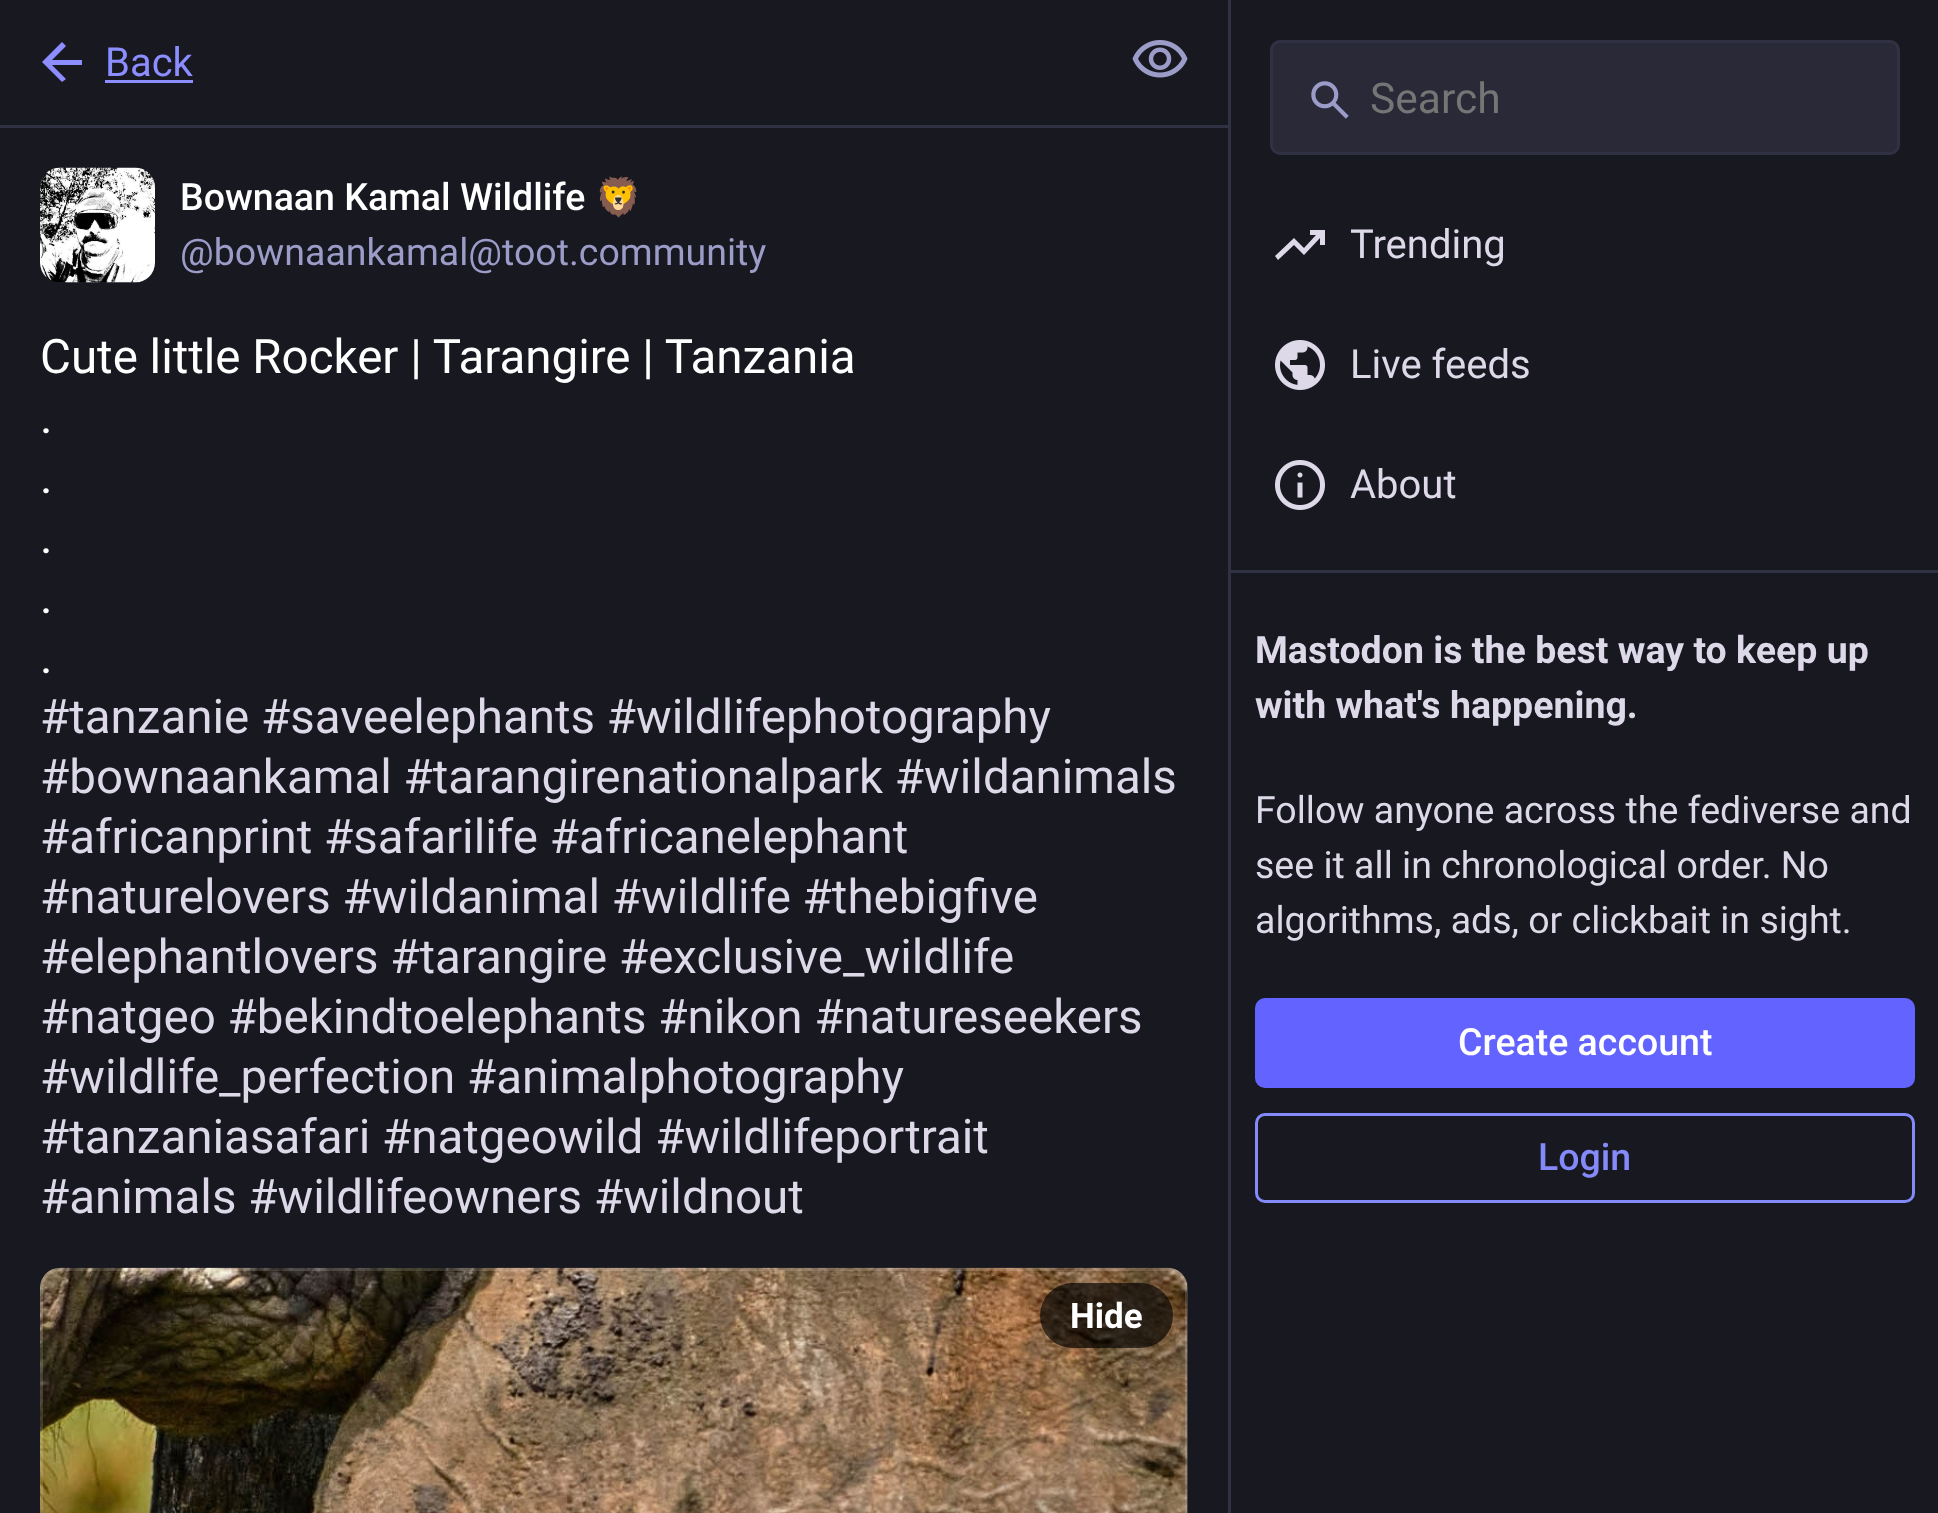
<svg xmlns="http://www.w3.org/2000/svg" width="1938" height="1513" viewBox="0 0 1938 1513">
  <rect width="100%" height="100%" fill="rgb(24,24,33)"/>
  <rect x="0" y="125" width="1228" height="3" fill="rgb(49,49,68)"/>
  <path d="M52 65L66 79L62 82L42 62L62 42L66 46L52 60H82V65Z" fill="rgb(140,141,255)"/>
  <text x="105" y="76" font-family="Roboto" font-size="40" fill="rgb(140,141,255)">Back</text>
  <rect x="105" y="80" width="88" height="3" fill="rgb(140,141,255)"/>
  <image x="1132" y="40" width="56" height="38" href="pic1.png"/>
  <rect x="40" y="168" width="115" height="115" rx="20" fill="rgb(32,32,44)"/>
  <image x="40" y="167" width="115" height="116" href="pic2.png"/>
  <text x="180" y="210" font-family="Roboto" font-size="37.5" font-weight="500" fill="rgb(255,255,255)">Bownaan Kamal Wildlife</text>
  <text x="595" y="210" font-family="Noto Color Emoji" font-size="37.5" fill="rgb(255,255,255)">🦁</text>
  <text x="180" y="265" font-family="Roboto" font-size="37.5" fill="rgb(156,156,201)">@bownaankamal@toot.community</text>
  <g font-family="Roboto" font-size="47.5" fill="rgb(255,255,255)">
    <text>
      <tspan x="40" y="373">Cute little Rocker | Tarangire | Tanzania</tspan>
      <tspan x="40" y="433">.</tspan>
      <tspan x="40" y="493">.</tspan>
      <tspan x="40" y="553">.</tspan>
      <tspan x="40" y="613">.</tspan>
      <tspan x="40" y="673">.</tspan>
    </text>
  </g>
  <g font-family="Roboto" font-size="47.5" fill="rgb(221,217,232)">
    <text>
      <tspan x="40" y="733">#tanzanie #saveelephants #wildlifephotography</tspan>
      <tspan x="40" y="793">#bownaankamal #tarangirenationalpark #wildanimals</tspan>
      <tspan x="40" y="853">#africanprint #safarilife #africanelephant</tspan>
      <tspan x="40" y="913">#naturelovers #wildanimal #wildlife #thebigfive</tspan>
      <tspan x="40" y="973">#elephantlovers #tarangire #exclusive_wildlife</tspan>
      <tspan x="40" y="1033">#natgeo #bekindtoelephants #nikon #natureseekers</tspan>
      <tspan x="40" y="1093">#wildlife_perfection #animalphotography</tspan>
      <tspan x="40" y="1153">#tanzaniasafari #natgeowild #wildlifeportrait</tspan>
      <tspan x="40" y="1213">#animals #wildlifeowners #wildnout</tspan>
    </text>
  </g>
  <image x="40" y="1267" width="1148" height="246" href="pic3.png"/>
  <rect x="41.5" y="1269.5" width="1145" height="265" rx="18.5" fill="none" stroke="rgba(252,248,255,0.15)" stroke-width="3"/>
  <rect x="1040" y="1283" width="133" height="65" rx="32.5" fill="rgba(0,0,0,0.65)"/>
  <text x="1070" y="1328" font-family="Roboto" font-size="35" font-weight="bold" fill="rgb(255,255,255)">Hide</text>
  <rect x="1228" y="0" width="3" height="1513" fill="rgb(49,49,68)"/>
  <rect x="1271.5" y="41.5" width="627" height="112" rx="8.5" fill="rgb(41,41,56)" stroke="rgb(49,49,68)" stroke-width="3"/>
  <image x="1311" y="81" width="38" height="38" href="pic4.png"/>
  <text x="1370" y="113" font-family="Roboto" font-size="42.5" fill="rgb(117,117,117)">Search</text>
  <path d="M1278 260L1275 256L1294 238L1304 248L1316 235H1310V230H1325V245H1320V238L1304 255L1294 245Z" fill="rgb(221,217,232)"/>
  <text x="1350" y="258" font-family="Roboto" font-size="40" fill="rgb(221,217,232)">Trending</text>
  <image x="1275" y="340" width="50" height="50" href="pic5.png"/>
  <text x="1350" y="378" font-family="Roboto" font-size="40" fill="rgb(221,217,232)">Live feeds</text>
  <image x="1275" y="460" width="50" height="50" href="pic6.png"/>
  <text x="1350" y="498" font-family="Roboto" font-size="40" fill="rgb(221,217,232)">About</text>
  <rect x="1230" y="570" width="708" height="3" fill="rgb(49,49,68)"/>
  <g font-family="Roboto" font-size="37.5" font-weight="bold" fill="rgb(221,217,232)">
    <text>
      <tspan x="1255" y="663">Mastodon is the best way to keep up</tspan>
      <tspan x="1255" y="718">with what's happening.</tspan>
    </text>
  </g>
  <g font-family="Roboto" font-size="37.5" fill="rgb(221,217,232)">
    <text>
      <tspan x="1255" y="823">Follow anyone across the fediverse and</tspan>
      <tspan x="1255" y="878">see it all in chronological order. No</tspan>
      <tspan x="1255" y="933">algorithms, ads, or clickbait in sight.</tspan>
    </text>
  </g>
  <rect x="1255" y="998" width="660" height="90" rx="10" fill="rgb(99,100,255)"/>
  <text x="1458" y="1055" font-family="Roboto" font-size="37.5" font-weight="500" fill="rgb(255,255,255)">Create account</text>
  <rect x="1256.5" y="1114.5" width="657" height="87" rx="8.5" fill="none" stroke="rgb(133,138,250)" stroke-width="3"/>
  <text x="1538" y="1170" font-family="Roboto" font-size="37.5" font-weight="500" fill="rgb(133,138,250)">Login</text>
</svg>
